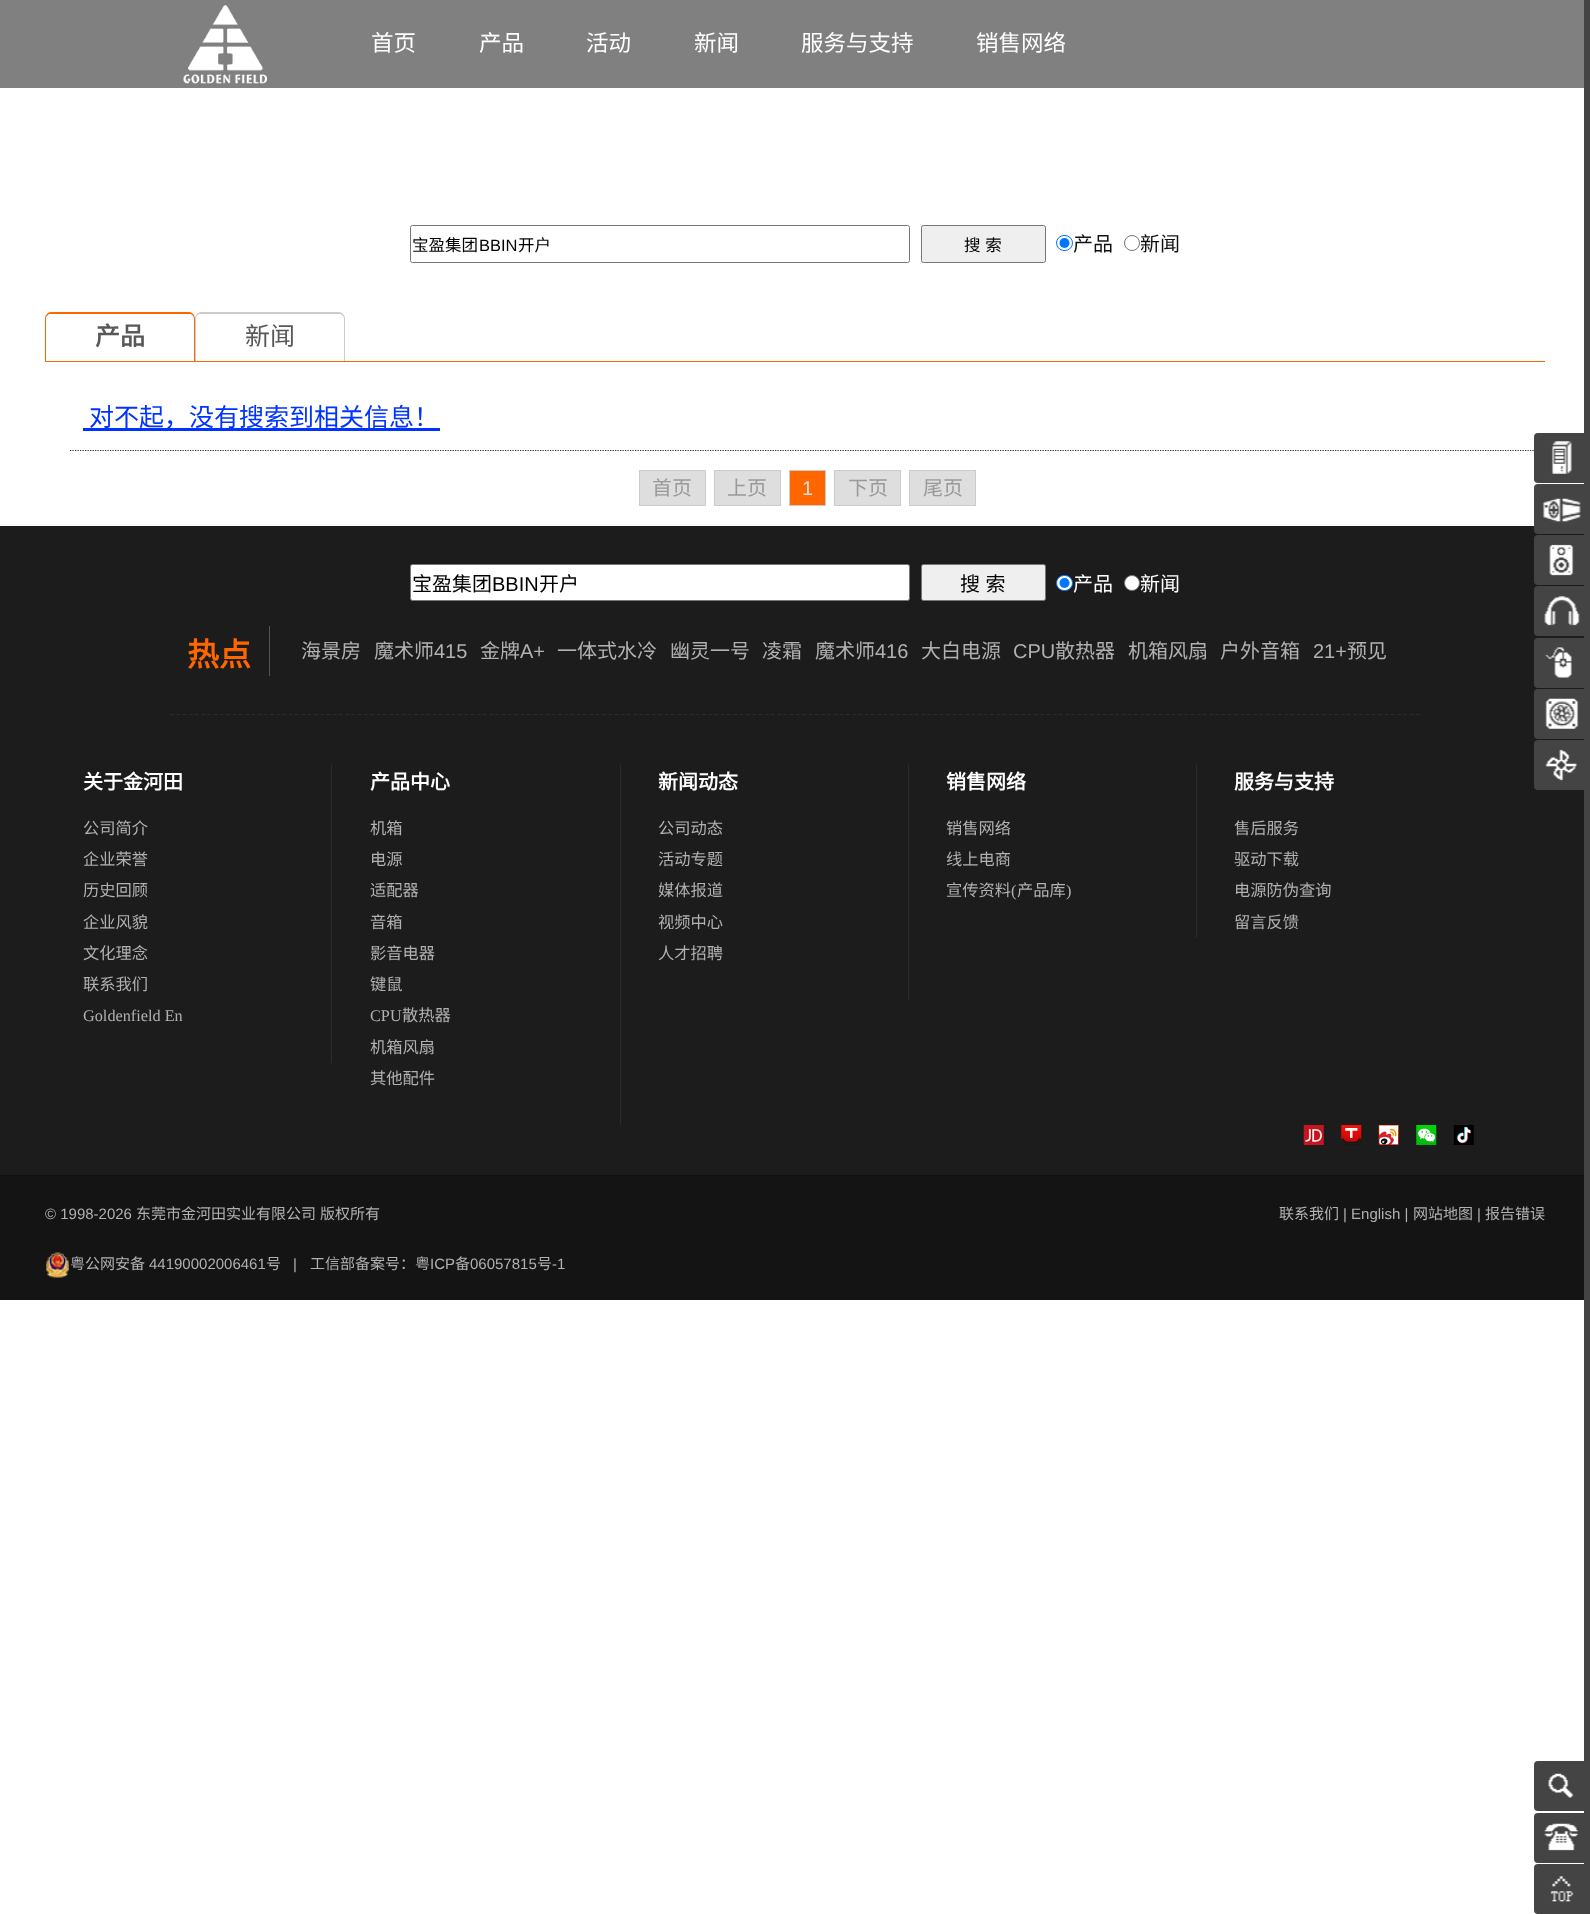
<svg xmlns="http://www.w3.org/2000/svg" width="1590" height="1914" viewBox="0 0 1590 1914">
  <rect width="100%" height="100%" fill="rgb(255,255,255)"/>
  <rect x="0" y="0" width="1584" height="88" fill="rgb(128,128,128)"/>
  <image x="183" y="5" width="84" height="79" href="pic1.png"/>
  <g font-family="Noto Sans CJK SC" font-size="22.5" fill="rgb(255,255,255)">
    <text x="371" y="51">首页</text>
    <text x="479" y="51">产品</text>
    <text x="586" y="51">活动</text>
    <text x="694" y="51">新闻</text>
    <text x="801" y="51">服务与支持</text>
    <text x="976" y="51">销售网络</text>
  </g>
  <rect x="0" y="1175" width="1590" height="1" fill="rgb(17,17,17)"/>
  <rect x="1584" y="0" width="6" height="1914" fill="rgb(68,68,68)"/>
  <path d="M70 450.5H1545" fill="none" stroke="rgb(51,51,51)" stroke-width="1.2" stroke-dasharray="1.25 1.25"/>
  <rect x="1534" y="433" width="56" height="50" rx="4" fill="rgb(68,68,68)"/>
  <image x="1551" y="441" width="21" height="33" href="pic2.png"/>
  <rect x="0" y="526" width="1584" height="649" fill="rgb(28,28,28)"/>
  <rect x="1534" y="484" width="56" height="50" rx="4" fill="rgb(68,68,68)"/>
  <image x="1542" y="498" width="39" height="24" href="pic3.png"/>
  <rect x="1534" y="535" width="56" height="50" rx="4" fill="rgb(68,68,68)"/>
  <image x="1549" y="544" width="25" height="32" href="pic4.png"/>
  <rect x="1534" y="586" width="56" height="50" rx="4" fill="rgb(68,68,68)"/>
  <image x="1544" y="596" width="36" height="30" href="pic5.png"/>
  <rect x="1534" y="638" width="56" height="50" rx="4" fill="rgb(68,68,68)"/>
  <image x="1545" y="647" width="27" height="31" href="pic6.png"/>
  <rect x="1534" y="689" width="56" height="50" rx="4" fill="rgb(68,68,68)"/>
  <image x="1545" y="698" width="34" height="31" href="pic7.png"/>
  <rect x="1534" y="740" width="56" height="50" rx="4" fill="rgb(68,68,68)"/>
  <image x="1545" y="749" width="32" height="32" href="pic8.png"/>
  <rect x="1534" y="1761" width="56" height="50" rx="4" fill="rgb(68,68,68)"/>
  <image x="1548" y="1773" width="26" height="25" href="pic9.png"/>
  <rect x="1534" y="1813" width="56" height="50" rx="4" fill="rgb(68,68,68)"/>
  <image x="1544" y="1823" width="35" height="28" href="pic10.png"/>
  <rect x="1534" y="1864" width="56" height="50" rx="4" fill="rgb(68,68,68)"/>
  <image x="1550" y="1876" width="24" height="26" href="pic11.png"/>
  <rect x="410.5" y="225.5" width="499" height="37" rx="2" fill="none" stroke="rgb(118,118,118)"/>
  <text x="412" y="251" font-family="Noto Sans CJK SC" font-size="16.5" fill="rgb(0,0,0)">宝盈集团</text>
  <text x="479" y="251" font-family="Liberation Sans" font-size="16.5" fill="rgb(0,0,0)">BBIN</text>
  <text x="518" y="251" font-family="Noto Sans CJK SC" font-size="16.5" fill="rgb(0,0,0)">开户</text>
  <rect x="921.5" y="225.5" width="124" height="37" rx="2" fill="rgb(239,239,239)" stroke="rgb(118,118,118)"/>
  <text x="964" y="251" word-spacing="1" font-family="Noto Sans CJK SC" font-size="16.5" fill="rgb(0,0,0)">搜 索</text>
  <rect x="1056.5" y="235.5" width="16" height="15" rx="7.5" fill="none" stroke="rgb(0,117,255)"/>
  <circle cx="1064.5" cy="243" r="5" fill="rgb(0,117,255)"/>
  <text x="1073" y="251" font-family="Noto Sans CJK SC" font-size="20" fill="rgb(17,17,17)">产品</text>
  <circle cx="1132" cy="243" r="7.5" fill="none" stroke="rgb(118,118,118)"/>
  <text x="1140" y="251" font-family="Noto Sans CJK SC" font-size="20" fill="rgb(17,17,17)">新闻</text>
  <rect x="45" y="361" width="1500" height="1" fill="rgb(255,102,0)"/>
  <path d="M51 312H189C192 312 195 315 195 319V361H45V319C45 315 48 312 51 312ZM51 314H189C192 314 194 316 194 319V361H46V319C46 316 48 314 51 314Z" fill="rgb(255,102,0)" fill-rule="evenodd"/>
  <text x="95" y="345" font-family="Noto Sans CJK SC" font-size="25" font-weight="bold" fill="rgb(88,88,88)">产品</text>
  <path d="M201 312H339C342 312 345 315 345 319V361H195V319C195 315 198 312 201 312ZM201 314H339C342 314 344 316 344 319V361H196V319C196 316 198 314 201 314Z" fill="rgb(204,204,204)" fill-rule="evenodd"/>
  <text x="245" y="345" font-family="Noto Sans CJK SC" font-size="25" fill="rgb(88,88,88)">新闻</text>
  <rect x="83" y="428" width="357" height="3" fill="rgb(0,51,255)"/>
  <text x="89" y="426" font-family="Noto Sans CJK SC" font-size="25" fill="rgb(0,51,255)">对不起，没有搜索到相关信息！</text>
  <rect x="639.5" y="470.5" width="66" height="35" fill="rgb(222,222,222)" stroke="rgb(204,204,204)"/>
  <text x="652" y="495" font-family="Noto Sans CJK SC" font-size="20" fill="rgb(153,153,153)">首页</text>
  <rect x="714.5" y="470.5" width="66" height="35" fill="rgb(222,222,222)" stroke="rgb(204,204,204)"/>
  <text x="727" y="495" font-family="Noto Sans CJK SC" font-size="20" fill="rgb(153,153,153)">上页</text>
  <rect x="789.5" y="470.5" width="36" height="35" fill="rgb(255,102,0)" stroke="rgb(204,204,204)"/>
  <text x="802" y="495" font-family="Liberation Sans" font-size="20" fill="rgb(221,221,221)">1</text>
  <rect x="834.5" y="470.5" width="66" height="35" fill="rgb(222,222,222)" stroke="rgb(204,204,204)"/>
  <text x="848" y="495" font-family="Noto Sans CJK SC" font-size="20" fill="rgb(153,153,153)">下页</text>
  <rect x="909.5" y="470.5" width="66" height="35" fill="rgb(222,222,222)" stroke="rgb(204,204,204)"/>
  <text x="923" y="495" font-family="Noto Sans CJK SC" font-size="20" fill="rgb(153,153,153)">尾页</text>
  <path d="M170 714.5H1420" fill="none" stroke="rgb(44,44,44)" stroke-width="1.2" stroke-dasharray="3.75 2.51"/>
  <rect x="410.5" y="564.5" width="499" height="36" rx="2" fill="rgb(255,255,255)" stroke="rgb(118,118,118)"/>
  <text x="412" y="591" font-family="Noto Sans CJK SC" font-size="20" fill="rgb(0,0,0)">宝盈集团</text>
  <text x="492" y="591" font-family="Liberation Sans" font-size="20" fill="rgb(0,0,0)">BBIN</text>
  <text x="539" y="591" font-family="Noto Sans CJK SC" font-size="20" fill="rgb(0,0,0)">开户</text>
  <rect x="921.5" y="564.5" width="124" height="36" rx="2" fill="rgb(239,239,239)" stroke="rgb(118,118,118)"/>
  <text x="960" y="591" word-spacing="1" font-family="Noto Sans CJK SC" font-size="20" fill="rgb(0,0,0)">搜 索</text>
  <rect x="1056.5" y="575.5" width="16" height="15" rx="7.5" fill="rgb(255,255,255)" stroke="rgb(0,117,255)"/>
  <circle cx="1064.5" cy="583" r="5" fill="rgb(0,117,255)"/>
  <text x="1073" y="591" font-family="Noto Sans CJK SC" font-size="20" fill="rgb(255,255,255)">产品</text>
  <circle cx="1132" cy="583" r="7.5" fill="rgb(255,255,255)" stroke="rgb(118,118,118)"/>
  <text x="1140" y="591" font-family="Noto Sans CJK SC" font-size="20" fill="rgb(255,255,255)">新闻</text>
  <rect x="269" y="626" width="1" height="50" fill="rgb(85,85,85)"/>
  <text x="187" y="666" font-family="Noto Sans CJK SC" font-size="32" font-weight="bold" fill="rgb(255,102,0)">热点</text>
  <g font-family="Noto Sans CJK SC" font-size="20" fill="rgb(177,177,177)">
    <text x="301" y="658">海景房</text>
    <text x="374" y="658">魔术师</text>
  </g>
  <text x="434" y="658" font-family="Liberation Sans" font-size="20" fill="rgb(177,177,177)">415</text>
  <text x="480" y="658" font-family="Noto Sans CJK SC" font-size="20" fill="rgb(177,177,177)">金牌</text>
  <text x="520" y="658" font-family="Liberation Sans" font-size="20" fill="rgb(177,177,177)">A+</text>
  <g font-family="Noto Sans CJK SC" font-size="20" fill="rgb(177,177,177)">
    <text x="557" y="658">一体式水冷</text>
    <text x="670" y="658">幽灵一号</text>
    <text x="762" y="658">凌霜</text>
    <text x="815" y="658">魔术师</text>
  </g>
  <text x="875" y="658" font-family="Liberation Sans" font-size="20" fill="rgb(177,177,177)">416</text>
  <text x="921" y="658" font-family="Noto Sans CJK SC" font-size="20" fill="rgb(177,177,177)">大白电源</text>
  <text x="1013" y="658" font-family="Liberation Sans" font-size="20" fill="rgb(177,177,177)">CPU</text>
  <g font-family="Noto Sans CJK SC" font-size="20" fill="rgb(177,177,177)">
    <text x="1055" y="658">散热器</text>
    <text x="1128" y="658">机箱风扇</text>
    <text x="1220" y="658">户外音箱</text>
  </g>
  <text x="1313" y="658" font-family="Liberation Sans" font-size="20" fill="rgb(177,177,177)">21+</text>
  <text x="1347" y="658" font-family="Noto Sans CJK SC" font-size="20" fill="rgb(177,177,177)">预见</text>
  <rect x="331" y="765" width="1" height="298" fill="rgb(44,44,44)"/>
  <text x="83" y="789" font-family="Noto Sans CJK SC" font-size="20" font-weight="bold" fill="rgb(255,255,255)">关于金河田</text>
  <g font-family="Noto Sans CJK SC" font-size="16.25" fill="rgb(177,177,177)">
    <text>
      <tspan x="83" y="834">公司简介</tspan>
      <tspan x="83" y="865">企业荣誉</tspan>
      <tspan x="83" y="896">历史回顾</tspan>
      <tspan x="83" y="928">企业风貌</tspan>
      <tspan x="83" y="959">文化理念</tspan>
      <tspan x="83" y="990">联系我们</tspan>
    </text>
  </g>
  <text x="83" y="1021" font-family="Liberation Serif" font-size="16.25" fill="rgb(177,177,177)">Goldenfield En</text>
  <rect x="620" y="765" width="1" height="360" fill="rgb(44,44,44)"/>
  <text x="370" y="789" font-family="Noto Sans CJK SC" font-size="20" font-weight="bold" fill="rgb(255,255,255)">产品中心</text>
  <g font-family="Noto Sans CJK SC" font-size="16.25" fill="rgb(177,177,177)">
    <text>
      <tspan x="370" y="834">机箱</tspan>
      <tspan x="370" y="865">电源</tspan>
      <tspan x="370" y="896">适配器</tspan>
      <tspan x="370" y="928">音箱</tspan>
      <tspan x="370" y="959">影音电器</tspan>
      <tspan x="370" y="990">键鼠</tspan>
    </text>
  </g>
  <text x="370" y="1021" font-family="Liberation Serif" font-size="16.25" fill="rgb(177,177,177)">CPU</text>
  <g font-family="Noto Sans CJK SC" font-size="16.25" fill="rgb(177,177,177)">
    <text x="402" y="1021">散热器</text>
    <text>
      <tspan x="370" y="1053">机箱风扇</tspan>
      <tspan x="370" y="1084">其他配件</tspan>
    </text>
  </g>
  <rect x="908" y="765" width="1" height="235" fill="rgb(44,44,44)"/>
  <text x="658" y="789" font-family="Noto Sans CJK SC" font-size="20" font-weight="bold" fill="rgb(255,255,255)">新闻动态</text>
  <g font-family="Noto Sans CJK SC" font-size="16.25" fill="rgb(177,177,177)">
    <text>
      <tspan x="658" y="834">公司动态</tspan>
      <tspan x="658" y="865">活动专题</tspan>
      <tspan x="658" y="896">媒体报道</tspan>
      <tspan x="658" y="928">视频中心</tspan>
      <tspan x="658" y="959">人才招聘</tspan>
    </text>
  </g>
  <rect x="1196" y="765" width="1" height="173" fill="rgb(44,44,44)"/>
  <text x="946" y="789" font-family="Noto Sans CJK SC" font-size="20" font-weight="bold" fill="rgb(255,255,255)">销售网络</text>
  <g font-family="Noto Sans CJK SC" font-size="16.25" fill="rgb(177,177,177)">
    <text>
      <tspan x="946" y="834">销售网络</tspan>
      <tspan x="946" y="865">线上电商</tspan>
      <tspan x="946" y="896">宣传资料</tspan>
    </text>
  </g>
  <text x="1011" y="896" font-family="Liberation Serif" font-size="16.25" fill="rgb(177,177,177)">(</text>
  <text x="1017" y="896" font-family="Noto Sans CJK SC" font-size="16.25" fill="rgb(177,177,177)">产品库</text>
  <text x="1066" y="896" font-family="Liberation Serif" font-size="16.25" fill="rgb(177,177,177)">)</text>
  <text x="1234" y="789" font-family="Noto Sans CJK SC" font-size="20" font-weight="bold" fill="rgb(255,255,255)">服务与支持</text>
  <g font-family="Noto Sans CJK SC" font-size="16.25" fill="rgb(177,177,177)">
    <text>
      <tspan x="1234" y="834">售后服务</tspan>
      <tspan x="1234" y="865">驱动下载</tspan>
      <tspan x="1234" y="896">电源防伪查询</tspan>
      <tspan x="1234" y="928">留言反馈</tspan>
    </text>
  </g>
  <image x="1303" y="1125" width="21" height="20" href="pic12.png"/>
  <image x="1341" y="1125" width="21" height="20" href="pic13.png"/>
  <image x="1378" y="1125" width="21" height="20" href="pic14.png"/>
  <image x="1416" y="1125" width="21" height="20" href="pic15.png"/>
  <image x="1453" y="1125" width="21" height="20" href="pic16.png"/>
  <rect x="0" y="1176" width="1584" height="124" fill="rgb(20,20,20)"/>
  <text x="45" y="1219" font-family="Liberation Sans" font-size="15" fill="rgb(177,177,177)">© 1998-2026</text>
  <g font-family="Noto Sans CJK SC" font-size="15" fill="rgb(177,177,177)">
    <text x="136" y="1219">东莞市金河田实业有限公司</text>
    <text x="320" y="1219">版权所有</text>
    <text x="1279" y="1219">联系我们</text>
  </g>
  <text x="1343" y="1219" font-family="Liberation Sans" font-size="15" fill="rgb(177,177,177)">| English |</text>
  <text x="1413" y="1219" font-family="Noto Sans CJK SC" font-size="15" fill="rgb(177,177,177)">网站地图</text>
  <text x="1477" y="1219" font-family="Liberation Sans" font-size="15" fill="rgb(177,177,177)">|</text>
  <text x="1485" y="1219" font-family="Noto Sans CJK SC" font-size="15" fill="rgb(177,177,177)">报告错误</text>
  <image x="46" y="1252" width="23" height="26" href="pic17.png"/>
  <text x="70" y="1269" font-family="Noto Sans CJK SC" font-size="15" fill="rgb(177,177,177)">粤公网安备</text>
  <text x="149" y="1269" font-family="Liberation Sans" font-size="15" fill="rgb(177,177,177)">44190002006461</text>
  <text x="266" y="1269" font-family="Noto Sans CJK SC" font-size="15" fill="rgb(177,177,177)">号</text>
  <text x="293" y="1269" font-family="Liberation Sans" font-size="15" fill="rgb(177,177,177)">|</text>
  <text x="310" y="1269" font-family="Noto Sans CJK SC" font-size="15" fill="rgb(177,177,177)">工信部备案号：粤</text>
  <text x="430" y="1269" font-family="Liberation Sans" font-size="15" fill="rgb(177,177,177)">ICP</text>
  <text x="455" y="1269" font-family="Noto Sans CJK SC" font-size="15" fill="rgb(177,177,177)">备</text>
  <text x="470" y="1269" font-family="Liberation Sans" font-size="15" fill="rgb(177,177,177)">06057815</text>
  <text x="537" y="1269" font-family="Noto Sans CJK SC" font-size="15" fill="rgb(177,177,177)">号</text>
  <text x="552" y="1269" font-family="Liberation Sans" font-size="15" fill="rgb(177,177,177)">-1</text>
</svg>
